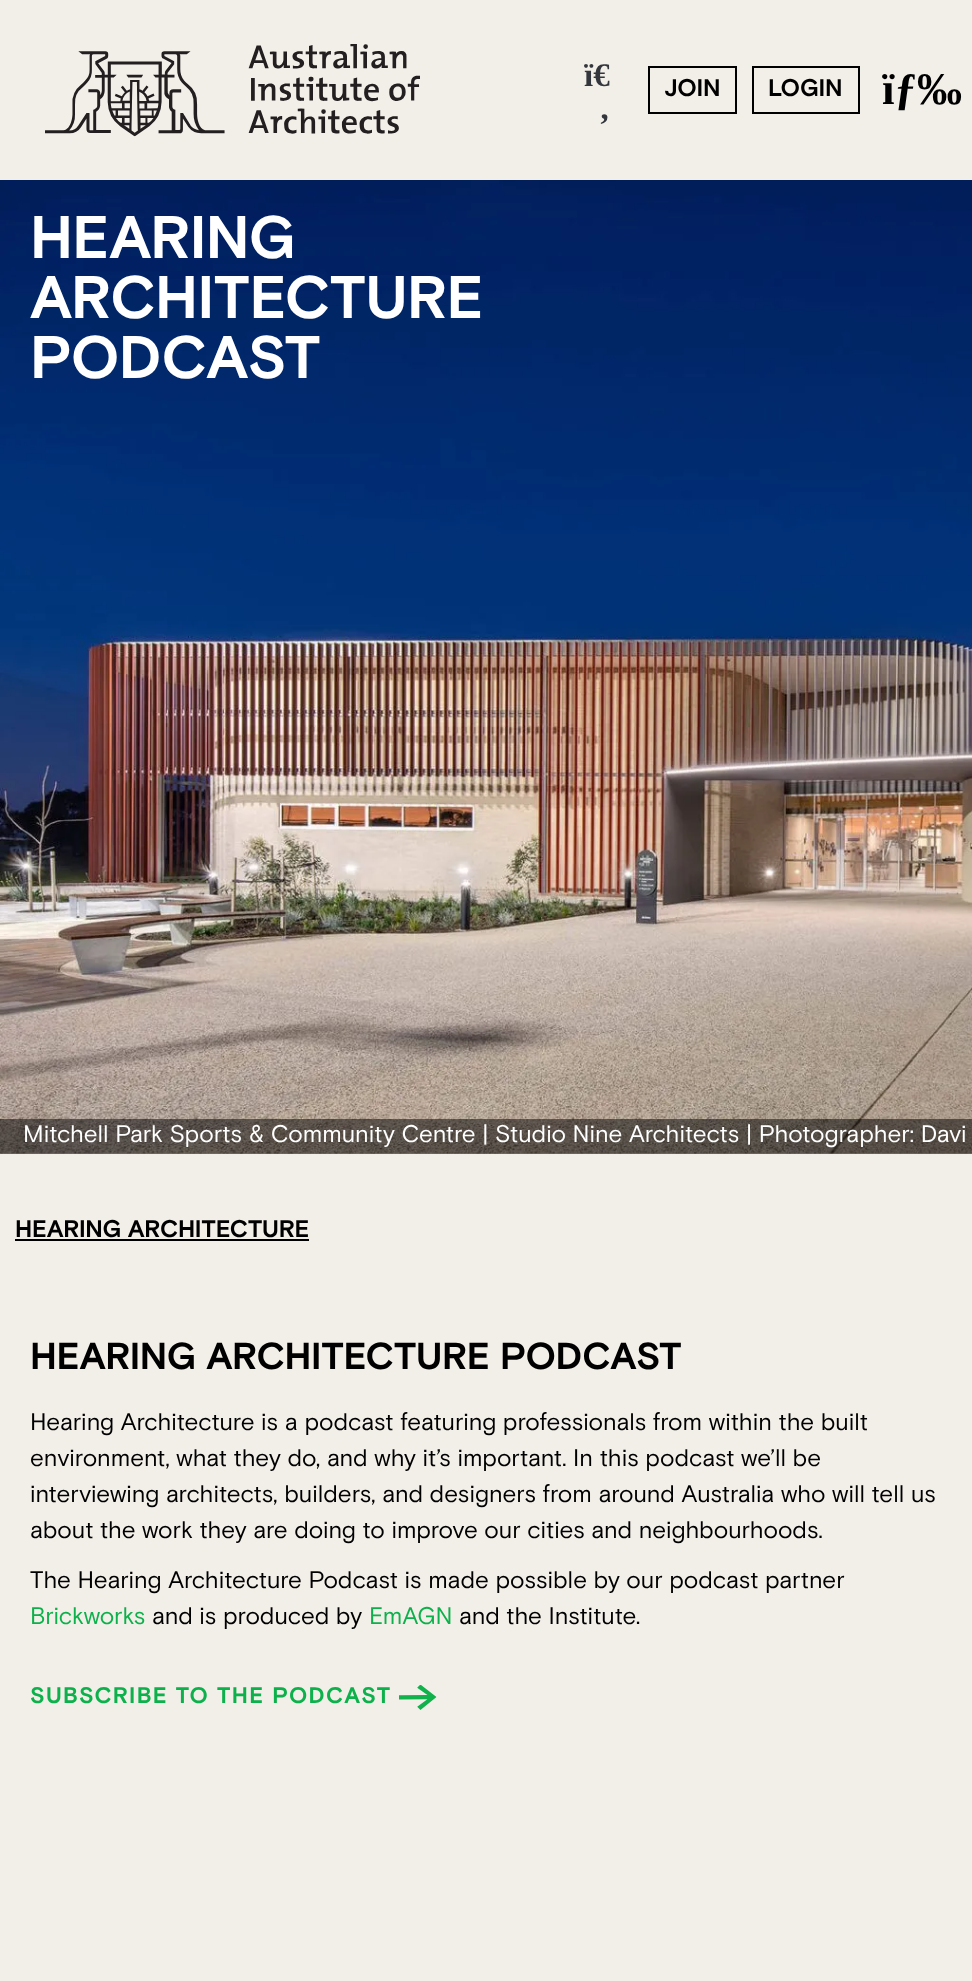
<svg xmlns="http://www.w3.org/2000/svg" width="972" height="1981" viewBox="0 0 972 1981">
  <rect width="100%" height="100%" fill="rgb(242,238,232)"/>
  <image x="45" y="44" width="375" height="93" href="pic1.png"/>
  <g font-family="Liberation Serif" font-size="33" font-weight="bold" fill="rgb(51,55,61)">
    <text x="584" y="86">ï€</text>
    <text x="599" y="119">‚</text>
  </g>
  <rect x="649" y="67" width="87" height="46" fill="none" stroke="rgb(0,0,0)" stroke-width="2"/>
  <text x="664" y="96" font-family="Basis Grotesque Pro" font-size="24" font-weight="bold" fill="rgb(0,0,0)">JOIN</text>
  <rect x="753" y="67" width="106" height="46" fill="none" stroke="rgb(0,0,0)" stroke-width="2"/>
  <text x="768" y="96" font-family="Basis Grotesque Pro" font-size="24" font-weight="bold" fill="rgb(0,0,0)">LOGIN</text>
  <text x="882" y="104" font-family="Liberation Serif" font-size="45" font-weight="bold" fill="rgb(0,0,0)">ïƒ‰</text>
  <image x="0" y="180" width="972" height="974" href="pic2.png"/>
  <g font-family="Basis Grotesque Pro" font-size="60" font-weight="bold" fill="rgb(255,255,255)">
    <text>
      <tspan x="30" y="258">HEARING</tspan>
      <tspan x="30" y="318">ARCHITECTURE</tspan>
      <tspan x="30" y="378">PODCAST</tspan>
    </text>
  </g>
  <rect x="0" y="1119" width="972" height="35" fill="rgba(0,0,0,0.5)"/>
  <text x="23" y="1142" font-family="Basis Grotesque Pro" font-size="24" fill="rgb(255,255,255)">Mitchell Park Sports &amp; Community Centre | Studio Nine Architects | Photographer: Davi</text>
  <text x="15" y="1237" font-family="Basis Grotesque Pro" font-size="24" font-weight="bold" fill="rgb(0,0,0)">HEARING ARCHITECTURE</text>
  <rect x="15" y="1239" width="294" height="2" fill="rgb(0,0,0)"/>
  <text x="30" y="1369" font-family="Basis Grotesque Pro" font-size="37.5" font-weight="bold" fill="rgb(0,0,0)">HEARING ARCHITECTURE PODCAST</text>
  <g font-family="Basis Grotesque Pro" font-size="24" fill="rgb(0,0,0)">
    <text>
      <tspan x="30" y="1430">Hearing Architecture is a podcast featuring professionals from within the built</tspan>
      <tspan x="30" y="1466">environment, what they do, and why it’s important. In this podcast we’ll be</tspan>
      <tspan x="30" y="1502">interviewing architects, builders, and designers from around Australia who will tell us</tspan>
      <tspan x="30" y="1538">about the work they are doing to improve our cities and neighbourhoods.</tspan>
    </text>
    <text x="30" y="1588">The Hearing Architecture Podcast is made possible by our podcast partner</text>
  </g>
  <text x="30" y="1624" font-family="Basis Grotesque Pro" font-size="24" fill="rgb(13,177,75)">Brickworks</text>
  <text x="152" y="1624" font-family="Basis Grotesque Pro" font-size="24" fill="rgb(0,0,0)">and is produced by</text>
  <text x="369" y="1624" font-family="Basis Grotesque Pro" font-size="24" fill="rgb(13,177,75)">EmAGN</text>
  <text x="459" y="1624" font-family="Basis Grotesque Pro" font-size="24" fill="rgb(0,0,0)">and the Institute.</text>
  <text x="30" y="1703" font-family="Basis Grotesque Pro" font-size="22.5" font-weight="bold" letter-spacing="1.5" fill="rgb(13,177,75)">SUBSCRIBE TO THE PODCAST</text>
  <image x="399" y="1685" width="38" height="25" href="pic3.png"/>
</svg>
